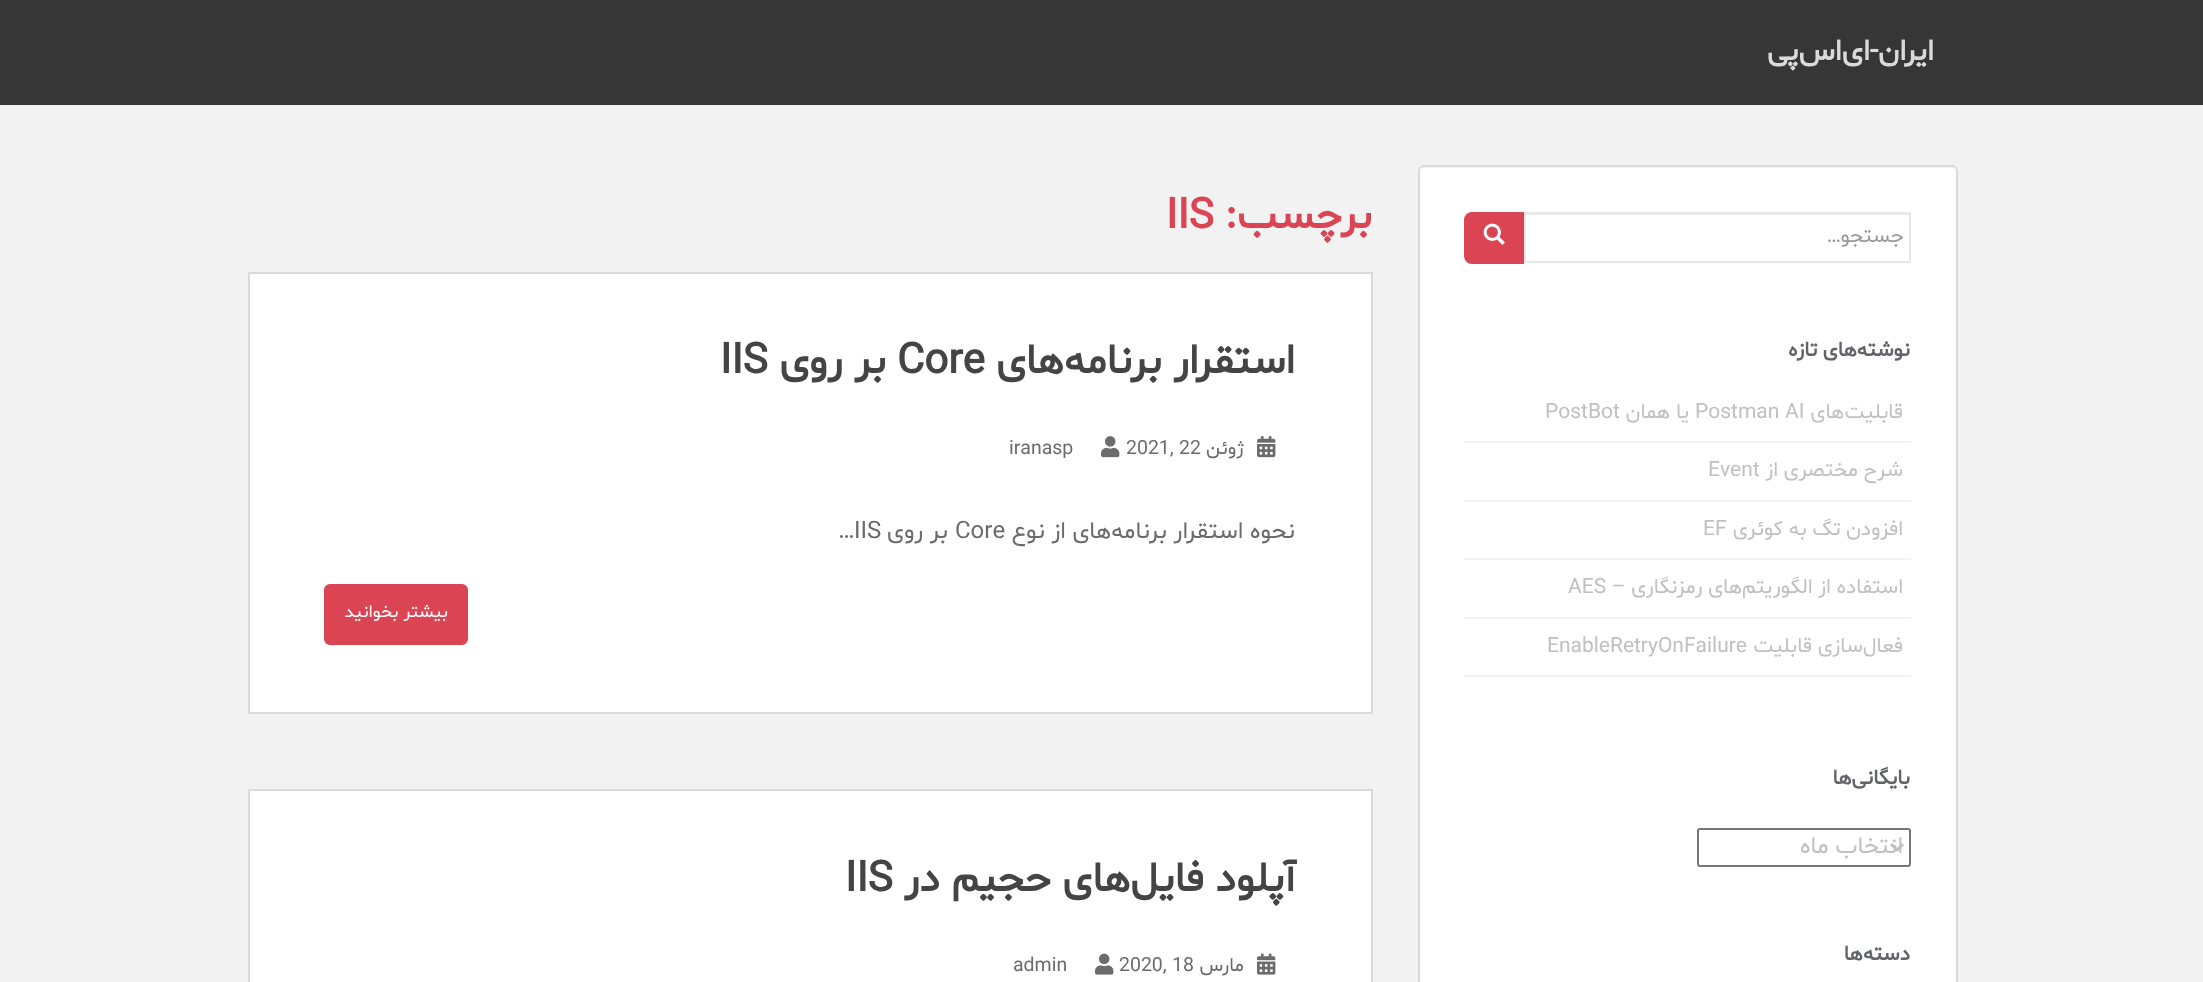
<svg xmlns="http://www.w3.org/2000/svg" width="2203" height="982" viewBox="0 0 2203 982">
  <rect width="100%" height="100%" fill="rgb(242,242,242)"/>
  <rect x="0" y="0" width="2203" height="105" fill="rgb(54,54,54)"/>
  <text x="1934" y="60" font-family="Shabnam" font-size="30" font-weight="bold" direction="rtl" fill="rgb(218,218,218)">ایران-ای‌اس‌پی</text>
  <rect x="1418" y="165" width="540" height="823" rx="6" fill="rgb(255,255,255)"/>
  <path d="M1424 168H1952C1954 168 1956 170 1956 172C1956 169 1954 167 1951 167H1424C1421 167 1419 169 1419 172C1419 170 1421 168 1424 168Z" fill="rgb(242,242,242)"/>
  <rect x="1419" y="166" width="538" height="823" rx="5" fill="none" stroke="rgb(218,218,218)" stroke-width="2"/>
  <rect x="1526" y="214" width="384" height="1" fill="rgb(236,236,236)"/>
  <rect x="1525" y="213" width="385" height="49" fill="none" stroke="rgb(232,232,232)" stroke-width="2"/>
  <text x="1904" y="242" font-family="Shabnam" font-size="21" direction="rtl" fill="rgb(153,153,153)">جستجو…</text>
  <path d="M1472 213H1523V263H1472C1468 263 1465 260 1465 256V220C1465 216 1468 213 1472 213Z" fill="rgb(218,68,83)" stroke="rgb(218,68,83)" stroke-width="2"/>
  <image x="1483" y="223" width="22" height="22" href="pic1.png"/>
  <text x="1910" y="356" font-family="Shabnam" font-size="21" font-weight="bold" direction="rtl" fill="rgb(99,100,103)">نوشته‌های تازه</text>
  <rect x="1464" y="441" width="447" height="2" fill="rgb(242,242,242)"/>
  <text x="1903" y="418" font-family="Shabnam" font-size="21" direction="rtl" fill="rgb(193,192,192)">قابلیت‌های</text>
  <text x="1695" y="418" font-family="Shabnam" font-size="21" fill="rgb(193,192,192)">Postman AI</text>
  <text x="1689" y="418" font-family="Shabnam" font-size="21" direction="rtl" fill="rgb(193,192,192)">یا همان</text>
  <text x="1545" y="418" font-family="Shabnam" font-size="21" fill="rgb(193,192,192)">PostBot</text>
  <rect x="1464" y="500" width="447" height="2" fill="rgb(242,242,242)"/>
  <text x="1903" y="476" font-family="Shabnam" font-size="21" direction="rtl" fill="rgb(193,192,192)">شرح مختصری از</text>
  <text x="1708" y="476" font-family="Shabnam" font-size="21" fill="rgb(193,192,192)">Event</text>
  <rect x="1464" y="558" width="447" height="2" fill="rgb(242,242,242)"/>
  <text x="1903" y="535" font-family="Shabnam" font-size="21" direction="rtl" fill="rgb(193,192,192)">افزودن تگ به کوئری</text>
  <text x="1703" y="535" font-family="Shabnam" font-size="21" fill="rgb(193,192,192)">EF</text>
  <rect x="1464" y="617" width="447" height="2" fill="rgb(242,242,242)"/>
  <text x="1903" y="593" font-family="Shabnam" font-size="21" direction="rtl" fill="rgb(193,192,192)">استفاده از الگوریتم‌های رمزنگاری –</text>
  <text x="1568" y="593" font-family="Shabnam" font-size="21" fill="rgb(193,192,192)">AES</text>
  <rect x="1464" y="675" width="447" height="2" fill="rgb(242,242,242)"/>
  <text x="1903" y="652" font-family="Shabnam" font-size="21" direction="rtl" fill="rgb(193,192,192)">فعال‌سازی قابلیت</text>
  <text x="1547" y="652" font-family="Shabnam" font-size="21" fill="rgb(193,192,192)">EnableRetryOnFailure</text>
  <text x="1910" y="784" font-family="Shabnam" font-size="21" font-weight="bold" direction="rtl" fill="rgb(99,100,103)">بایگانی‌ها</text>
  <rect x="1698" y="829" width="212" height="37" rx="2" fill="none" stroke="rgb(118,118,118)" stroke-width="2"/>
  <path d="M1891 844L1897 850L1903 844" fill="none" stroke="rgb(193,192,192)" stroke-width="3"/>
  <text x="1903" y="853" font-family="Shabnam" font-size="24" direction="rtl" fill="rgb(193,192,192)">انتخاب ماه</text>
  <text x="1910" y="960" font-family="Shabnam" font-size="21" font-weight="bold" direction="rtl" fill="rgb(99,100,103)">دسته‌ها</text>
  <text x="1372" y="228" font-family="Shabnam" font-size="42" font-weight="bold" direction="rtl" fill="rgb(218,68,83)">برچسب:</text>
  <text x="1166" y="228" font-family="Shabnam" font-size="42" font-weight="bold" fill="rgb(218,68,83)">IIS</text>
  <rect x="249" y="273" width="1123" height="440" fill="rgb(255,255,255)" stroke="rgb(218,218,218)" stroke-width="2"/>
  <text x="1295" y="373" font-family="Shabnam" font-size="42" font-weight="bold" direction="rtl" fill="rgb(68,68,68)">استقرار برنامه‌های</text>
  <text x="897" y="373" font-family="Shabnam" font-size="42" font-weight="bold" fill="rgb(68,68,68)">Core</text>
  <text x="886" y="373" font-family="Shabnam" font-size="42" font-weight="bold" direction="rtl" fill="rgb(68,68,68)">بر روی</text>
  <text x="720" y="373" font-family="Shabnam" font-size="42" font-weight="bold" fill="rgb(68,68,68)">IIS</text>
  <image x="1257" y="436" width="19" height="22" href="pic2.png"/>
  <text x="1244" y="454" font-family="Shabnam" font-size="19.5" direction="rtl" fill="rgb(107,107,107)">ژوئن</text>
  <text x="1126" y="454" font-family="Shabnam" font-size="19.5" fill="rgb(107,107,107)">2021, 22</text>
  <image x="1101" y="436" width="19" height="22" href="pic3.png"/>
  <text x="1009" y="454" font-family="Shabnam" font-size="19.5" fill="rgb(107,107,107)">iranasp</text>
  <text x="1295" y="538" font-family="Shabnam" font-size="24" direction="rtl" fill="rgb(107,107,107)">نحوه استقرار برنامه‌های از نوع</text>
  <text x="955" y="538" font-family="Shabnam" font-size="24" fill="rgb(107,107,107)">Core</text>
  <text x="948" y="538" font-family="Shabnam" font-size="24" direction="rtl" fill="rgb(107,107,107)">بر روی</text>
  <text x="838" y="538" font-family="Shabnam" font-size="24" fill="rgb(107,107,107)">…IIS</text>
  <rect x="325" y="585" width="142" height="59" rx="5" fill="rgb(218,68,83)" stroke="rgb(218,68,83)" stroke-width="2"/>
  <text x="448" y="617" font-family="Shabnam" font-size="18" direction="rtl" fill="rgb(255,255,255)">بیشتر بخوانید</text>
  <rect x="249" y="790" width="1123" height="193" fill="rgb(255,255,255)" stroke="rgb(218,218,218)" stroke-width="2"/>
  <text x="1295" y="891" font-family="Shabnam" font-size="42" font-weight="bold" direction="rtl" fill="rgb(68,68,68)">آپلود فایل‌های حجیم در</text>
  <text x="845" y="891" font-family="Shabnam" font-size="42" font-weight="bold" fill="rgb(68,68,68)">IIS</text>
  <image x="1257" y="953" width="19" height="22" href="pic4.png"/>
  <text x="1244" y="971" font-family="Shabnam" font-size="19.5" direction="rtl" fill="rgb(107,107,107)">مارس</text>
  <text x="1119" y="971" font-family="Shabnam" font-size="19.5" fill="rgb(107,107,107)">2020, 18</text>
  <image x="1095" y="953" width="19" height="22" href="pic5.png"/>
  <text x="1013" y="971" font-family="Shabnam" font-size="19.5" fill="rgb(107,107,107)">admin</text>
</svg>
